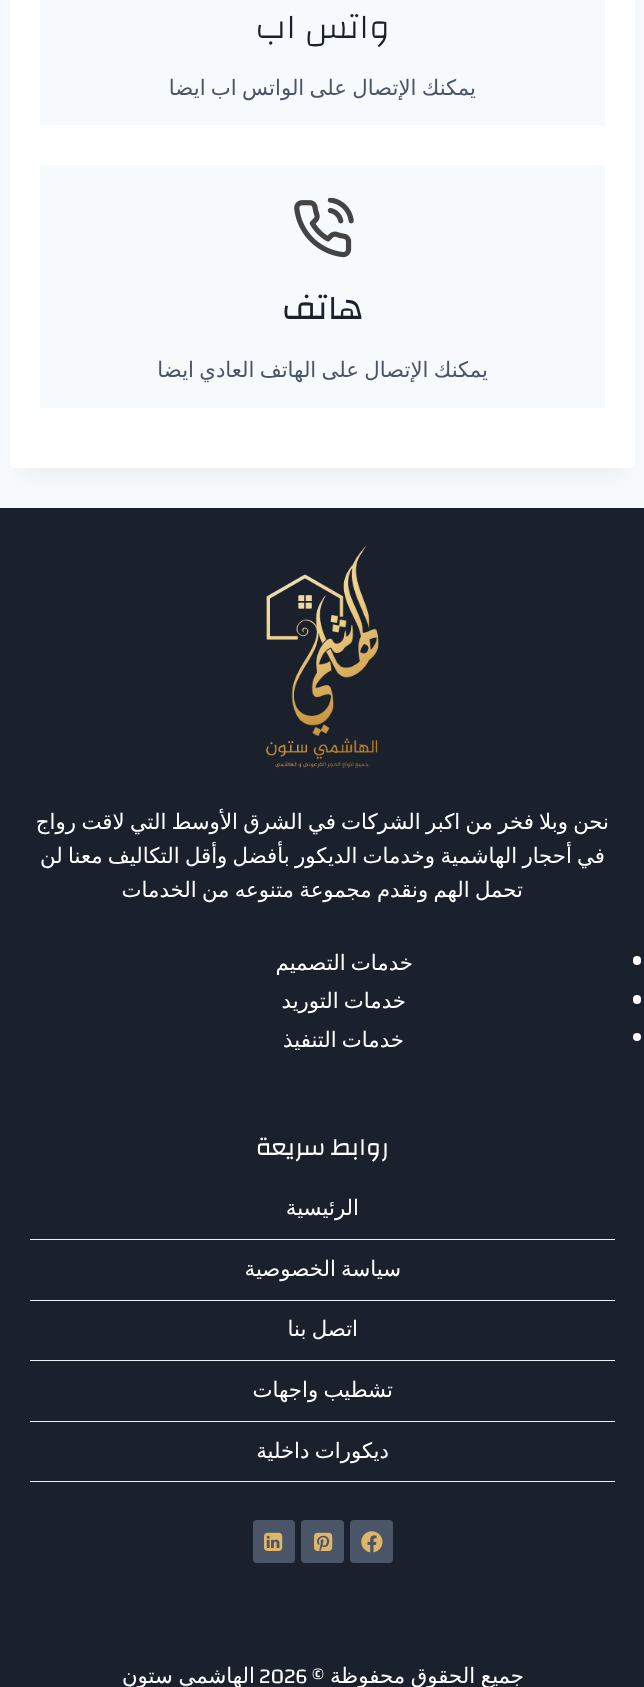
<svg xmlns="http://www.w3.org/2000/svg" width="644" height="1687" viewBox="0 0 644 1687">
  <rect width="100%" height="100%" fill="rgb(247,250,252)"/>
  <rect x="23" y="-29" width="600" height="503" fill="rgba(0,0,0,0.05)" filter="blur(9.5px)"/>
  <rect x="10" y="-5" width="625" height="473" rx="5" fill="rgb(255,255,255)"/>
  <rect x="40" y="0" width="565" height="125" fill="rgb(247,250,252)"/>
  <text x="390" y="38" font-family="Changa" font-size="35" font-weight="300" direction="rtl" fill="rgb(26,32,44)">واتس اب</text>
  <text x="476" y="95" word-spacing="-1.5" font-family="DejaVu Sans" font-size="21.25" direction="rtl" fill="rgb(74,85,104)">يمكنك الإتصال على الواتس اب ايضا</text>
  <rect x="40" y="165" width="565" height="243" fill="rgb(247,250,252)"/>
  <image x="294" y="198" width="60" height="60" href="pic1.png"/>
  <text x="363" y="319" font-family="Changa" font-size="35" direction="rtl" fill="rgb(26,32,44)">هاتف</text>
  <text x="488" y="377" word-spacing="-1.5" font-family="DejaVu Sans" font-size="21.25" direction="rtl" fill="rgb(74,85,104)">يمكنك الإتصال على الهاتف العادي ايضا</text>
  <rect x="0" y="508" width="644" height="1179" fill="rgb(26,32,44)"/>
  <image x="266" y="545" width="113" height="224" href="pic2.png"/>
  <g font-family="DejaVu Sans" font-size="21.25" direction="rtl" fill="rgb(255,255,255)">
    <text x="609" y="829" word-spacing="-1.5">نحن وبلا فخر من اكبر الشركات في الشرق الأوسط التي لاقت</text>
    <text x="76" y="829">رواج</text>
    <text x="605" y="863" word-spacing="-1.5">في أحجار الهاشمية</text>
    <text x="435" y="863" word-spacing="-1.5">وخدمات الديكور بأفضل وأقل التكاليف معنا لن</text>
    <text x="523" y="897" word-spacing="-1.5">تحمل الهم ونقدم مجموعة متنوعه من الخدمات</text>
  </g>
  <rect x="633" y="956" width="8" height="9" rx="4" fill="rgb(255,255,255)"/>
  <text x="413" y="970" word-spacing="-1.5" font-family="DejaVu Sans" font-size="21.25" direction="rtl" fill="rgb(255,255,255)">خدمات التصميم</text>
  <rect x="633" y="995" width="8" height="9" rx="4" fill="rgb(255,255,255)"/>
  <text x="406" y="1008" word-spacing="-1.5" font-family="DejaVu Sans" font-size="21.25" direction="rtl" fill="rgb(255,255,255)">خدمات التوريد</text>
  <circle cx="637" cy="1037" r="4" fill="rgb(255,255,255)"/>
  <text x="404" y="1047" word-spacing="-1.5" font-family="DejaVu Sans" font-size="21.25" direction="rtl" fill="rgb(255,255,255)">خدمات التنفيذ</text>
  <text x="389" y="1155" word-spacing="-1" font-family="Changa" font-size="25" direction="rtl" fill="rgb(255,255,255)">روابط سريعة</text>
  <rect x="30" y="1239" width="585" height="1" fill="rgb(237,242,247)"/>
  <text x="359" y="1215" font-family="DejaVu Sans" font-size="21.25" direction="rtl" fill="rgb(255,255,255)">الرئيسية</text>
  <rect x="30" y="1300" width="585" height="1" fill="rgb(237,242,247)"/>
  <text x="401" y="1276" word-spacing="-1.5" font-family="DejaVu Sans" font-size="21.25" direction="rtl" fill="rgb(255,255,255)">سياسة الخصوصية</text>
  <rect x="30" y="1360" width="585" height="1" fill="rgb(237,242,247)"/>
  <text x="358" y="1336" word-spacing="-1.5" font-family="DejaVu Sans" font-size="21.25" direction="rtl" fill="rgb(255,255,255)">اتصل بنا</text>
  <rect x="30" y="1421" width="585" height="1" fill="rgb(237,242,247)"/>
  <text x="393" y="1397" word-spacing="-1.5" font-family="DejaVu Sans" font-size="21.25" direction="rtl" fill="rgb(255,255,255)">تشطيب واجهات</text>
  <rect x="30" y="1481" width="585" height="1" fill="rgb(237,242,247)"/>
  <text x="389" y="1458" word-spacing="-1.5" font-family="DejaVu Sans" font-size="21.25" direction="rtl" fill="rgb(255,255,255)">ديكورات داخلية</text>
  <rect x="350" y="1520" width="43" height="43" rx="4" fill="rgb(74,85,104)"/>
  <image x="361" y="1531" width="22" height="22" href="pic3.png"/>
  <rect x="301" y="1520" width="43" height="43" rx="4" fill="rgb(74,85,104)"/>
  <image x="314" y="1532" width="19" height="19" href="pic4.png"/>
  <rect x="253" y="1520" width="42" height="43" rx="4" fill="rgb(74,85,104)"/>
  <image x="264" y="1532" width="19" height="19" href="pic5.png"/>
  <text x="524" y="1683" word-spacing="-1" font-family="DejaVu Sans" font-size="21.25" direction="rtl" fill="rgb(255,255,255)">جميع الحقوق محفوظة</text>
  <text x="324" y="1683" font-family="'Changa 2'" font-size="21.25" direction="rtl" fill="rgb(255,255,255)">©</text>
  <text x="259" y="1683" font-family="'Changa 2'" font-size="21.25" fill="rgb(255,255,255)">2026</text>
  <text x="255" y="1683" word-spacing="-1" font-family="DejaVu Sans" font-size="21.25" direction="rtl" fill="rgb(255,255,255)">الهاشمي ستون</text>
</svg>
